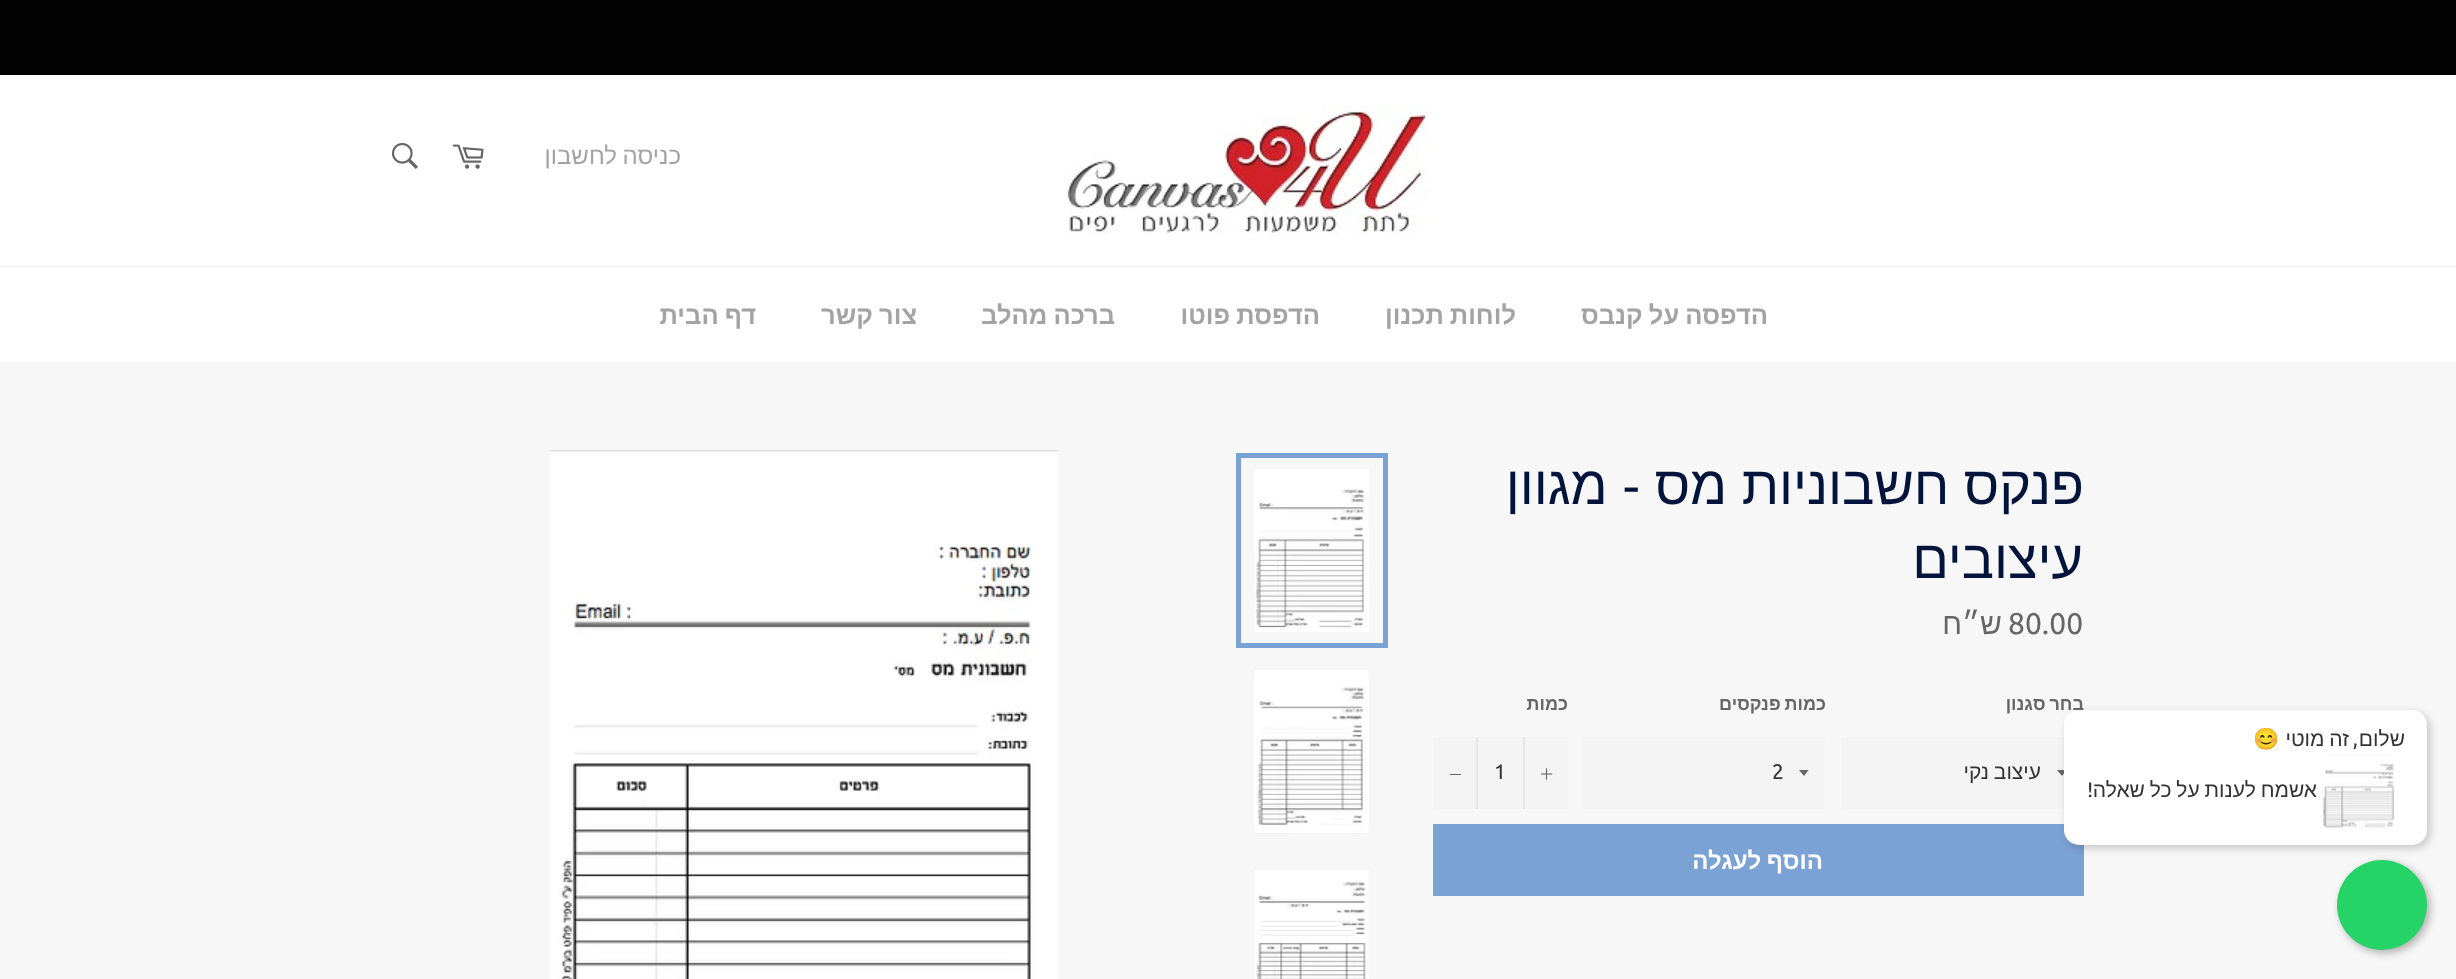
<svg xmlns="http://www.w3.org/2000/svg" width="2456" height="979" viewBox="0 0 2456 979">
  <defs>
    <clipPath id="clip1"><rect x="2057" y="770" width="12" height="7"/></clipPath>
    <clipPath id="clip2"><rect x="1799" y="770" width="12" height="7"/></clipPath>
  </defs>
  <rect width="100%" height="100%" fill="rgb(3,3,3)"/>
  <rect x="0" y="362" width="2456" height="617" fill="rgb(247,247,247)"/>
  <rect x="0" y="75" width="2456" height="191" fill="rgb(255,255,255)"/>
  <image x="1064" y="105" width="366" height="130" href="pic1.png"/>
  <text x="681" y="164" word-spacing="-1" font-family="Liberation Sans" font-size="24" direction="rtl" fill="rgb(163,163,163)">כניסה לחשבון</text>
  <image x="452" y="144" width="32" height="25" href="pic2.png"/>
  <image x="391" y="142" width="27" height="27" href="pic3.png"/>
  <rect x="0" y="266" width="2456" height="1" fill="rgb(242,242,242)"/>
  <rect x="0" y="267" width="2456" height="95" fill="rgb(255,255,255)"/>
  <g font-family="Liberation Sans" font-size="25.5" font-weight="bold" direction="rtl" fill="rgb(163,163,163)">
    <text x="1768" y="324" word-spacing="-1">הדפסה על קנבס</text>
    <text x="1516" y="324" word-spacing="-1">לוחות תכנון</text>
    <text x="1320" y="324" word-spacing="-1">הדפסת פוטו</text>
    <text x="1115" y="324" word-spacing="-1">ברכה מהלב</text>
    <text x="917" y="324" word-spacing="-1">צור קשר</text>
    <text x="756" y="324" word-spacing="-1">דף הבית</text>
  </g>
  <rect x="1841" y="737" width="223" height="72" fill="rgb(244,244,244)"/>
  <g clip-path="url(#clip1)">
    <path d="M2056.5 769.5L2062 776L2067 769.5Z" fill="rgb(102,102,102)"/>
  </g>
  <rect x="1433" y="824" width="651" height="72" fill="rgb(123,162,213)"/>
  <rect x="2067" y="713" width="363" height="135" rx="15" fill="rgba(0,0,0,0.2)" filter="blur(4px)"/>
  <text x="2084" y="710" word-spacing="-1" font-family="Liberation Sans" font-size="18" font-weight="bold" direction="rtl" fill="rgb(102,102,102)">בחר סגנון</text>
  <rect x="2064" y="710" width="363" height="135" rx="15" fill="rgb(255,255,255)"/>
  <text x="2405" y="746" font-family="Liberation Sans" font-size="21" direction="rtl" fill="rgb(51,51,51)">שלום</text>
  <text x="2358" y="746" font-family="Ubuntu" font-size="21" direction="rtl" fill="rgb(51,51,51)">,</text>
  <text x="2349" y="746" word-spacing="-1" font-family="Liberation Sans" font-size="21" direction="rtl" fill="rgb(51,51,51)">זה מוטי</text>
  <text x="2280" y="746" font-family="Noto Color Emoji" font-size="21" direction="rtl" fill="rgb(51,51,51)">😊</text>
  <image x="2322" y="754" width="72" height="76" href="pic4.png"/>
  <text x="2317" y="797" word-spacing="-1" font-family="Liberation Sans" font-size="21" direction="rtl" fill="rgb(51,51,51)">אשמח לענות על כל שאלה</text>
  <text x="2093" y="797" font-family="Ubuntu" font-size="21" direction="rtl" fill="rgb(51,51,51)">!</text>
  <g font-family="Liberation Sans" font-size="54" direction="rtl" fill="rgb(2,20,59)">
    <text x="2084" y="504" word-spacing="-0.5">פנקס חשבוניות מס - מגוון</text>
    <text x="2083" y="578">עיצובים</text>
  </g>
  <text x="2008" y="634" font-family="Ubuntu" font-size="30" fill="rgb(102,102,102)">80.00</text>
  <text x="2002" y="634" font-family="Liberation Sans" font-size="30" direction="rtl" fill="rgb(102,102,102)">ש״ח</text>
  <text x="2041" y="779" word-spacing="-1" font-family="Liberation Sans" font-size="21" direction="rtl" fill="rgb(51,51,51)">עיצוב נקי</text>
  <text x="1826" y="710" word-spacing="-1" font-family="Liberation Sans" font-size="18" font-weight="bold" direction="rtl" fill="rgb(102,102,102)">כמות פנקסים</text>
  <rect x="1583" y="737" width="243" height="72" fill="rgb(244,244,244)"/>
  <g clip-path="url(#clip2)">
    <path d="M1798.5 769.5L1804 776L1809 769.5Z" fill="rgb(102,102,102)"/>
  </g>
  <text x="1772" y="779" font-family="Ubuntu" font-size="21" fill="rgb(51,51,51)">2</text>
  <text x="1568" y="710" font-family="Liberation Sans" font-size="18" font-weight="bold" direction="rtl" fill="rgb(102,102,102)">כמות</text>
  <rect x="1433" y="737" width="135" height="72" fill="rgb(244,244,244)"/>
  <rect x="1523" y="737" width="2" height="72" fill="rgb(231,231,231)"/>
  <image x="1541" y="768" width="12" height="12" href="pic5.png"/>
  <text x="1494" y="779" font-family="Ubuntu" font-size="21" fill="rgb(51,51,51)">1</text>
  <rect x="1476" y="737" width="2" height="72" fill="rgb(231,231,231)"/>
  <rect x="1450" y="774" width="11" height="1" fill="rgb(102,102,102)"/>
  <text x="1823" y="869" word-spacing="-1" font-family="Liberation Sans" font-size="24" font-weight="bold" direction="rtl" fill="rgb(255,255,255)">הוסף לעגלה</text>
  <image x="1254" y="469" width="115" height="163" href="pic6.png"/>
  <rect x="1238.5" y="455.5" width="147" height="190" fill="none" stroke="rgb(123,162,213)" stroke-width="5"/>
  <image x="1254" y="669" width="115" height="165" href="pic7.png"/>
  <image x="1254" y="870" width="115" height="109" href="pic8.png"/>
  <image x="550" y="450" width="508" height="529" href="pic9.png"/>
  <rect x="2340" y="863" width="90" height="90" rx="45" fill="rgba(0,0,0,0.3)" filter="blur(4px)"/>
  <circle cx="2382" cy="905" r="45" fill="rgb(37,211,102)"/>
</svg>
